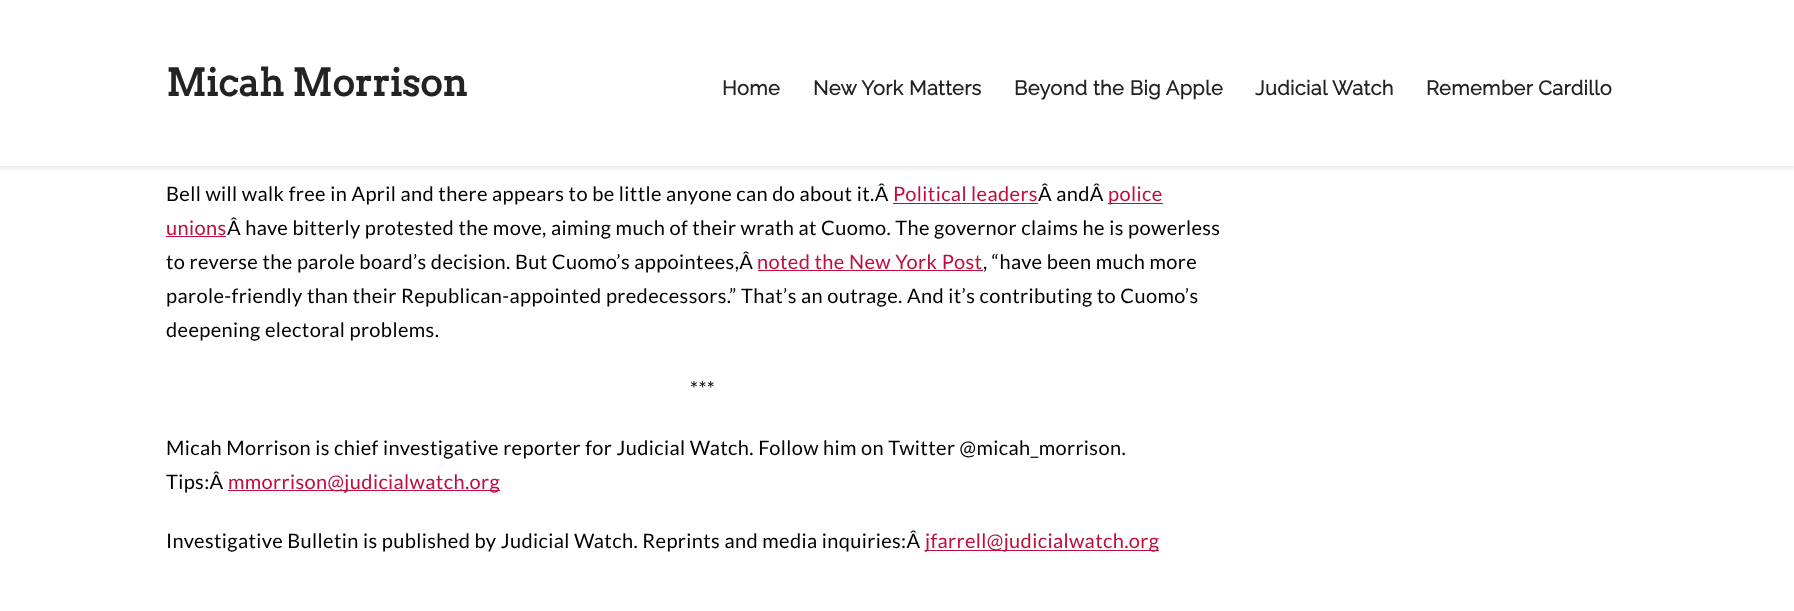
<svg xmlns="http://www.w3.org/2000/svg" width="1794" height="611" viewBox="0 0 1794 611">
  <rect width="100%" height="100%" fill="rgb(255,255,255)"/>
  <rect x="-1" y="-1" width="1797" height="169" fill="rgba(0,0,0,0.1)" filter="blur(2.5px)"/>
  <rect x="0" y="0" width="1794" height="166" fill="rgb(255,255,255)"/>
  <text x="166" y="96" font-family="Arvo" font-size="37.5" font-weight="bold" fill="rgb(35,35,35)">Micah Morrison</text>
  <g font-family="Raleway" font-size="20" font-weight="bold" letter-spacing="0.38" fill="rgb(35,35,35)">
    <text x="722" y="95">Home</text>
    <text x="813" y="95">New York Matters</text>
    <text x="1014" y="95">Beyond the Big Apple</text>
    <text x="1255" y="95">Judicial Watch</text>
    <text x="1426" y="95">Remember Cardillo</text>
  </g>
  <text x="166" y="201" font-family="Lato" font-size="20" letter-spacing="0.38" fill="rgb(0,0,0)">Bell will walk free in April and there appears to be little anyone can do about it.Â</text>
  <text x="893" y="201" font-family="Lato" font-size="20" letter-spacing="0.38" fill="rgb(191,13,62)">Political leaders</text>
  <rect x="893" y="203" width="145" height="1" fill="rgb(191,13,62)"/>
  <text x="1038" y="201" font-family="Lato" font-size="20" letter-spacing="0.38" fill="rgb(0,0,0)">Â andÂ</text>
  <rect x="1108" y="203" width="55" height="1" fill="rgb(191,13,62)"/>
  <g font-family="Lato" font-size="20" letter-spacing="0.38" fill="rgb(191,13,62)">
    <text x="1108" y="201">police</text>
    <text x="166" y="235">unions</text>
  </g>
  <rect x="166" y="236" width="60" height="1" fill="rgb(191,13,62)"/>
  <g font-family="Lato" font-size="20" letter-spacing="0.38" fill="rgb(0,0,0)">
    <text x="227" y="235">Â have bitterly protested the move, aiming much of their wrath at Cuomo. The governor claims he is powerless</text>
    <text x="166" y="269">to reverse the parole board’s decision. But Cuomo’s appointees,Â</text>
  </g>
  <text x="757" y="269" font-family="Lato" font-size="20" letter-spacing="0.38" fill="rgb(191,13,62)">noted the New York Post</text>
  <rect x="758" y="270" width="225" height="1" fill="rgb(191,13,62)"/>
  <g font-family="Lato" font-size="20" letter-spacing="0.38" fill="rgb(0,0,0)">
    <text x="983" y="269">, “have been much more</text>
    <text>
      <tspan x="166" y="303">parole-friendly than their Republican-appointed predecessors.” That’s an outrage. And it’s contributing to Cuomo’s</tspan>
      <tspan x="166" y="337">deepening electoral problems.</tspan>
    </text>
    <text x="690" y="396">***</text>
    <text>
      <tspan x="166" y="455">Micah Morrison is chief investigative reporter for Judicial Watch. Follow him on Twitter @micah_morrison.</tspan>
      <tspan x="166" y="489">Tips:Â</tspan>
    </text>
  </g>
  <rect x="228" y="490" width="272" height="1" fill="rgb(191,13,62)"/>
  <text x="228" y="489" font-family="Lato" font-size="20" letter-spacing="0.38" fill="rgb(191,13,62)">mmorrison@judicialwatch.org</text>
  <text x="166" y="548" font-family="Lato" font-size="20" letter-spacing="0.38" fill="rgb(0,0,0)">Investigative Bulletin is published by Judicial Watch. Reprints and media inquiries:Â</text>
  <rect x="925" y="550" width="234" height="1" fill="rgb(191,13,62)"/>
  <text x="925" y="548" font-family="Lato" font-size="20" letter-spacing="0.38" fill="rgb(191,13,62)">jfarrell@judicialwatch.org</text>
</svg>
